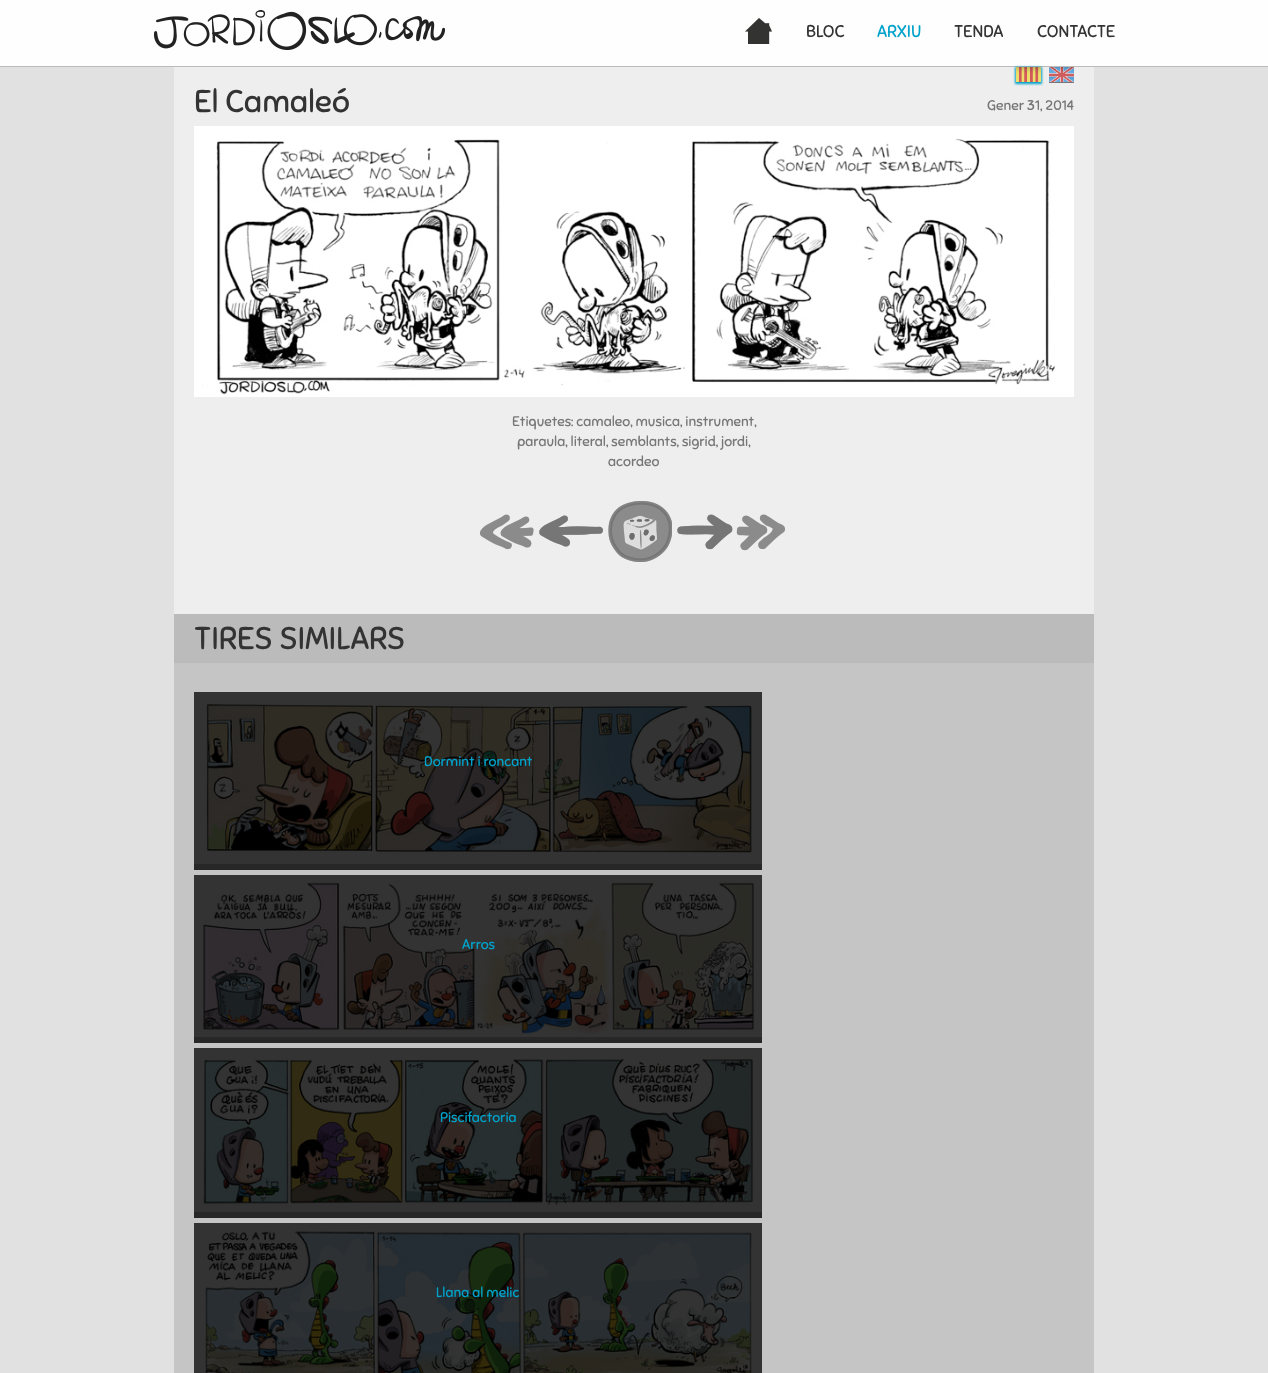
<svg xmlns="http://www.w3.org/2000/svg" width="1268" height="1373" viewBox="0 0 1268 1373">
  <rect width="100%" height="100%" fill="rgb(225,225,225)"/>
  <rect x="0" y="0" width="1268" height="66" fill="rgb(254,254,254)"/>
  <rect x="0" y="66" width="1268" height="1" fill="rgb(187,187,187)"/>
  <image x="154" y="10" width="291" height="40" href="pic1.png"/>
  <image x="745" y="18" width="27" height="26" href="pic2.png"/>
  <text x="806" y="37" font-family="Sniglet" font-size="17" fill="rgb(51,51,51)">BLOC</text>
  <text x="877" y="37" font-family="Sniglet" font-size="17" fill="rgb(0,162,202)">ARXIU</text>
  <g font-family="Sniglet" font-size="17" fill="rgb(51,51,51)">
    <text x="954" y="37">TENDA</text>
    <text x="1037" y="37">CONTACTE</text>
  </g>
  <rect x="174" y="663" width="920" height="710" fill="rgb(197,197,197)"/>
  <rect x="194" y="1212" width="568" height="6" fill="rgb(39,39,39)"/>
  <rect x="194" y="1037" width="568" height="6" fill="rgb(39,39,39)"/>
  <rect x="194" y="864" width="568" height="6" fill="rgb(39,39,39)"/>
  <rect x="174" y="67" width="920" height="547" fill="rgb(238,238,238)"/>
  <rect x="1015" y="67" width="27" height="17" fill="rgb(0,162,202)" filter="blur(1px)"/>
  <image x="1016" y="67" width="25" height="15" href="pic3.png"/>
  <rect x="1049" y="68" width="25" height="15" fill="rgba(0,0,0,0.5)" filter="blur(0.5px)"/>
  <image x="1049" y="67" width="25" height="15" href="pic4.png"/>
  <text x="194" y="112" font-family="Sniglet" font-size="31.5" fill="rgb(51,51,51)">El Camaleó</text>
  <text x="987" y="110" font-family="Sniglet" font-size="14" fill="rgb(119,119,119)">Gener 31, 2014</text>
  <image x="194" y="126" width="880" height="271" href="pic5.png"/>
  <g font-family="Sniglet" font-size="14" fill="rgb(119,119,119)">
    <text x="512" y="426">Etiquetes: camaleo, musica, instrument,</text>
    <text x="517" y="446">paraula, literal, semblants, sigrid, jordi,</text>
    <text x="608" y="466">acordeo</text>
  </g>
  <image x="480" y="514" width="54" height="36" href="pic6.png"/>
  <image x="539" y="515" width="64" height="32" href="pic7.png"/>
  <image x="608" y="501" width="64" height="61" href="pic8.png"/>
  <image x="677" y="514" width="56" height="36" href="pic9.png"/>
  <image x="736" y="514" width="49" height="37" href="pic10.png"/>
  <rect x="174" y="614" width="920" height="49" fill="rgb(187,187,187)"/>
  <text x="194" y="649" font-family="Sniglet" font-size="31.5" fill="rgb(51,51,51)">TIRES SIMILARS</text>
  <image x="194" y="692" width="568" height="172" href="pic11.png"/>
  <text x="424" y="766" font-family="Sniglet" font-size="14" fill="rgb(0,162,202)">Dormint i roncant</text>
  <image x="194" y="875" width="568" height="162" href="pic12.png"/>
  <text x="462" y="949" font-family="Sniglet" font-size="14" fill="rgb(0,162,202)">Arros</text>
  <image x="194" y="1048" width="568" height="164" href="pic13.png"/>
  <text x="440" y="1122" font-family="Sniglet" font-size="14" fill="rgb(0,162,202)">Piscifactoria</text>
  <image x="194" y="1223" width="568" height="150" href="pic14.png"/>
  <text x="436" y="1297" font-family="Sniglet" font-size="14" fill="rgb(0,162,202)">Llana al melic</text>
</svg>
